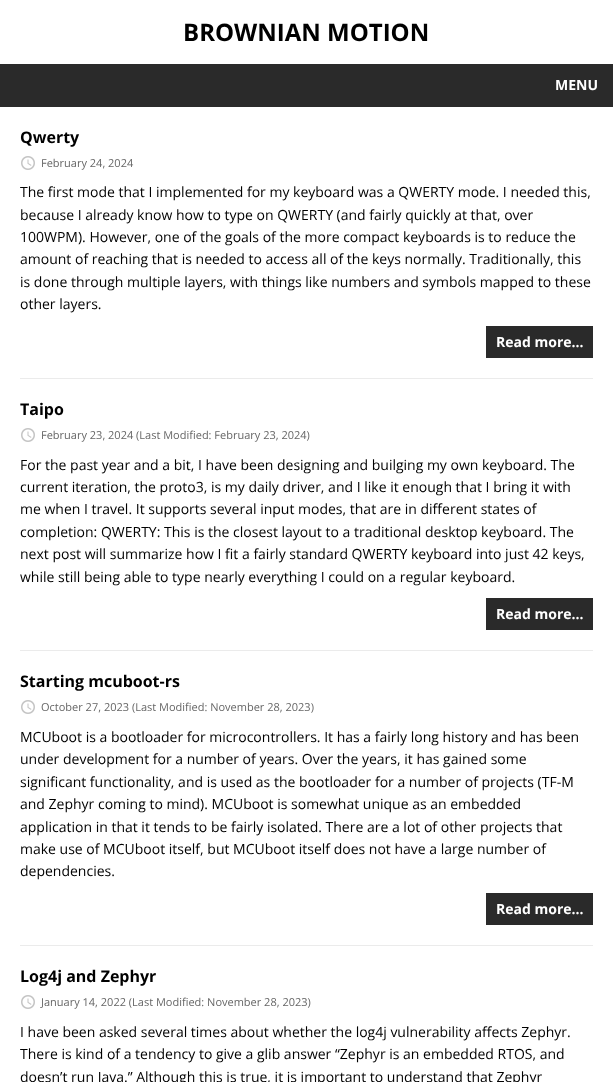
<svg xmlns="http://www.w3.org/2000/svg" width="613" height="1082" viewBox="0 0 613 1082">
  <rect width="100%" height="100%" fill="rgb(255,255,255)"/>
  <text x="183" y="41" font-family="Open Sans" font-size="24" font-weight="bold" fill="rgb(0,0,0)">BROWNIAN MOTION</text>
  <rect x="0" y="64" width="613" height="43" fill="rgb(42,42,42)"/>
  <text x="555" y="90" font-family="Open Sans" font-size="14" font-weight="bold" fill="rgb(255,255,255)">MENU</text>
  <rect x="20" y="378" width="573" height="1" fill="rgb(235,235,235)"/>
  <text x="20" y="143" font-family="Open Sans" font-size="16" font-weight="bold" fill="rgb(0,0,0)">Qwerty</text>
  <image x="21" y="156" width="14" height="14" href="pic1.png"/>
  <text x="41" y="167" font-family="Open Sans" font-size="11" fill="rgb(102,102,102)">February 24, 2024</text>
  <g font-family="Open Sans" font-size="14" fill="rgb(0,0,0)">
    <text>
      <tspan x="20" y="197">The first mode that I implemented for my keyboard was a QWERTY mode. I needed this,</tspan>
      <tspan x="20" y="220">because I already know how to type on QWERTY (and fairly quickly at that, over</tspan>
      <tspan x="20" y="242">100WPM). However, one of the goals of the more compact keyboards is to reduce the</tspan>
      <tspan x="20" y="264">amount of reaching that is needed to access all of the keys normally. Traditionally, this</tspan>
      <tspan x="20" y="287">is done through multiple layers, with things like numbers and symbols mapped to these</tspan>
      <tspan x="20" y="309">other layers.</tspan>
    </text>
  </g>
  <rect x="486" y="326" width="107" height="32" fill="rgb(42,42,42)"/>
  <text x="496" y="347" font-family="Open Sans" font-size="14" font-weight="bold" fill="rgb(255,255,255)">Read more…</text>
  <rect x="20" y="650" width="573" height="1" fill="rgb(235,235,235)"/>
  <text x="20" y="415" font-family="Open Sans" font-size="16" font-weight="bold" fill="rgb(0,0,0)">Taipo</text>
  <image x="21" y="428" width="14" height="14" href="pic1.png"/>
  <text x="41" y="439" font-family="Open Sans" font-size="11" fill="rgb(102,102,102)">February 23, 2024 (Last Modified: February 23, 2024)</text>
  <g font-family="Open Sans" font-size="14" fill="rgb(0,0,0)">
    <text>
      <tspan x="20" y="470">For the past year and a bit, I have been designing and builging my own keyboard. The</tspan>
      <tspan x="20" y="492">current iteration, the proto3, is my daily driver, and I like it enough that I bring it with</tspan>
      <tspan x="20" y="514">me when I travel. It supports several input modes, that are in different states of</tspan>
      <tspan x="20" y="537">completion: QWERTY: This is the closest layout to a traditional desktop keyboard. The</tspan>
      <tspan x="20" y="559">next post will summarize how I fit a fairly standard QWERTY keyboard into just 42 keys,</tspan>
      <tspan x="20" y="582">while still being able to type nearly everything I could on a regular keyboard.</tspan>
    </text>
  </g>
  <rect x="486" y="598" width="107" height="32" fill="rgb(42,42,42)"/>
  <text x="496" y="619" font-family="Open Sans" font-size="14" font-weight="bold" fill="rgb(255,255,255)">Read more…</text>
  <rect x="20" y="945" width="573" height="1" fill="rgb(235,235,235)"/>
  <text x="20" y="687" font-family="Open Sans" font-size="16" font-weight="bold" fill="rgb(0,0,0)">Starting mcuboot-rs</text>
  <image x="21" y="700" width="14" height="14" href="pic1.png"/>
  <text x="41" y="711" font-family="Open Sans" font-size="11" fill="rgb(102,102,102)">October 27, 2023 (Last Modified: November 28, 2023)</text>
  <g font-family="Open Sans" font-size="14" fill="rgb(0,0,0)">
    <text>
      <tspan x="20" y="742">MCUboot is a bootloader for microcontrollers. It has a fairly long history and has been</tspan>
      <tspan x="20" y="764">under development for a number of years. Over the years, it has gained some</tspan>
      <tspan x="20" y="787">significant functionality, and is used as the bootloader for a number of projects (TF-M</tspan>
      <tspan x="20" y="809">and Zephyr coming to mind). MCUboot is somewhat unique as an embedded</tspan>
      <tspan x="20" y="832">application in that it tends to be fairly isolated. There are a lot of other projects that</tspan>
      <tspan x="20" y="854">make use of MCUboot itself, but MCUboot itself does not have a large number of</tspan>
      <tspan x="20" y="876">dependencies.</tspan>
    </text>
  </g>
  <rect x="486" y="893" width="107" height="32" fill="rgb(42,42,42)"/>
  <text x="496" y="914" font-family="Open Sans" font-size="14" font-weight="bold" fill="rgb(255,255,255)">Read more…</text>
  <text x="20" y="982" font-family="Open Sans" font-size="16" font-weight="bold" fill="rgb(0,0,0)">Log4j and Zephyr</text>
  <image x="21" y="995" width="14" height="14" href="pic1.png"/>
  <text x="41" y="1006" font-family="Open Sans" font-size="11" fill="rgb(102,102,102)">January 14, 2022 (Last Modified: November 28, 2023)</text>
  <g font-family="Open Sans" font-size="14" fill="rgb(0,0,0)">
    <text>
      <tspan x="20" y="1037">I have been asked several times about whether the log4j vulnerability affects Zephyr.</tspan>
      <tspan x="20" y="1059">There is kind of a tendency to give a glib answer “Zephyr is an embedded RTOS, and</tspan>
      <tspan x="20" y="1082">doesn’t run Java.” Although this is true, it is important to understand that Zephyr</tspan>
    </text>
  </g>
</svg>
